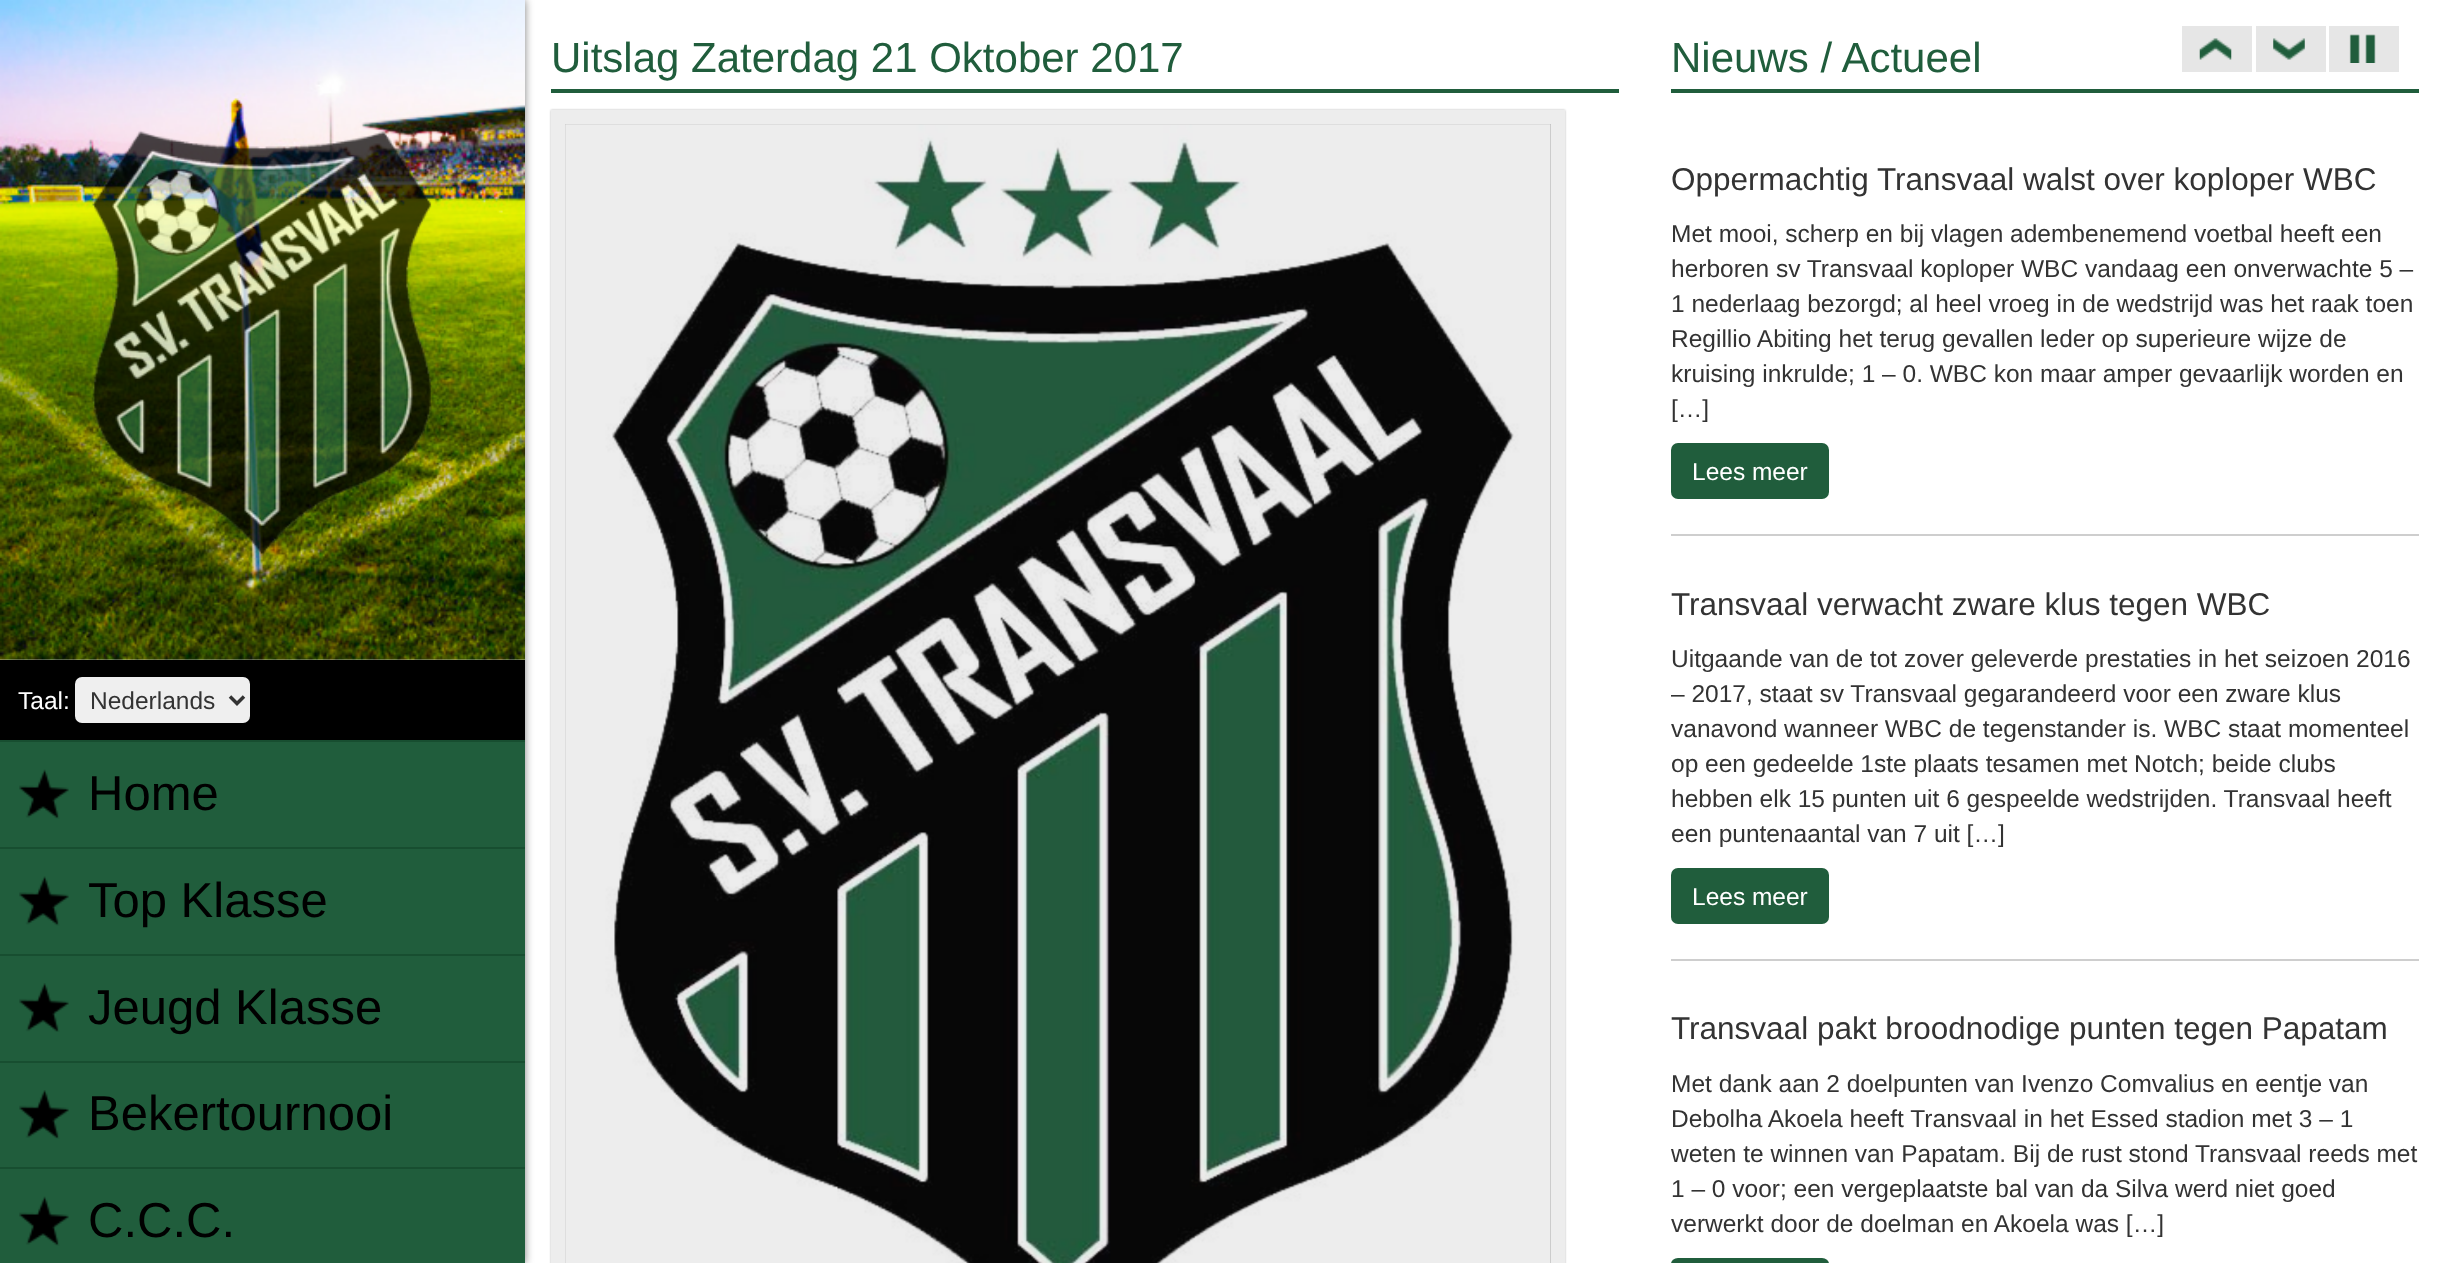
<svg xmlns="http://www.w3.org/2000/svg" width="2444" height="1263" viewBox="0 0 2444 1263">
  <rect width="100%" height="100%" fill="rgb(255,255,255)"/>
  <rect x="0" y="0" width="525" height="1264" fill="rgba(0,0,0,0.5)" filter="blur(4.5px)"/>
  <rect x="0" y="742" width="525" height="521" fill="rgb(32,93,60)"/>
  <rect x="0" y="0" width="525" height="660" fill="rgb(241,241,241)"/>
  <image x="0" y="0" width="525" height="660" href="pic1.png"/>
  <image x="92" y="130" width="340" height="426" href="pic2.png"/>
  <rect x="0" y="660" width="525" height="80" fill="rgb(0,0,0)"/>
  <text x="18" y="709" font-family="Liberation Sans" font-size="24.5" fill="rgb(255,255,255)">Taal:</text>
  <rect x="75" y="677" width="175" height="46" rx="7" fill="rgb(239,239,239)"/>
  <path d="M230 696.5L237 703.5L244 696.5" fill="none" stroke="rgb(51,51,51)" stroke-width="3.5"/>
  <text x="90" y="709" font-family="Liberation Sans" font-size="24.5" fill="rgb(51,51,51)">Nederlands</text>
  <image x="19" y="769" width="50" height="50" href="pic3.png"/>
  <rect x="0" y="740" width="525" height="2" fill="rgb(23,78,48)"/>
  <text x="88" y="810" font-family="Liberation Sans" font-size="49" fill="rgb(0,0,0)">Home</text>
  <image x="19" y="876" width="50" height="50" href="pic4.png"/>
  <rect x="0" y="847" width="525" height="2" fill="rgb(23,78,48)"/>
  <text x="88" y="917" font-family="Liberation Sans" font-size="49" fill="rgb(0,0,0)">Top Klasse</text>
  <image x="19" y="983" width="50" height="49" href="pic5.png"/>
  <rect x="0" y="954" width="525" height="2" fill="rgb(23,78,48)"/>
  <text x="88" y="1024" font-family="Liberation Sans" font-size="49" fill="rgb(0,0,0)">Jeugd Klasse</text>
  <image x="19" y="1090" width="50" height="49" href="pic6.png"/>
  <rect x="0" y="1061" width="525" height="2" fill="rgb(23,78,48)"/>
  <text x="88" y="1130" font-family="Liberation Sans" font-size="49" fill="rgb(0,0,0)">Bekertournooi</text>
  <image x="19" y="1196" width="50" height="50" href="pic3.png"/>
  <rect x="0" y="1167" width="525" height="2" fill="rgb(23,78,48)"/>
  <text x="88" y="1237" font-family="Liberation Sans" font-size="49" fill="rgb(0,0,0)">C.C.C.</text>
  <rect x="551" y="89" width="1068" height="4" fill="rgb(32,93,60)"/>
  <text x="551" y="72" font-family="Liberation Sans" font-size="42" fill="rgb(32,93,60)">Uitslag Zaterdag 21 Oktober 2017</text>
  <rect x="551" y="110" width="1014" height="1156" fill="rgba(6,6,6,0.3)" filter="blur(1px)"/>
  <rect x="558" y="117" width="1000" height="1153" fill="none" stroke="rgb(237,237,237)" stroke-width="14"/>
  <image x="565" y="124" width="986" height="1139" href="pic7.png"/>
  <rect x="1671" y="89" width="748" height="4" fill="rgb(32,93,60)"/>
  <text x="1671" y="72" font-family="Liberation Sans" font-size="42" fill="rgb(32,93,60)">Nieuws / Actueel</text>
  <rect x="2182" y="26" width="70" height="46" fill="rgb(230,230,230)"/>
  <image x="2199" y="38" width="33" height="22" href="pic8.png"/>
  <rect x="2256" y="26" width="70" height="46" fill="rgb(230,230,230)"/>
  <image x="2273" y="38" width="32" height="22" href="pic9.png"/>
  <rect x="2329" y="26" width="70" height="46" fill="rgb(230,230,230)"/>
  <image x="2349" y="34" width="27" height="29" href="pic10.png"/>
  <rect x="1671" y="534" width="748" height="2" fill="rgb(206,206,206)"/>
  <text x="1671" y="190" font-family="Liberation Sans" font-size="31.5" fill="rgb(51,51,51)">Oppermachtig Transvaal walst over koploper WBC</text>
  <g font-family="Liberation Sans" font-size="24.5" fill="rgb(51,51,51)">
    <text>
      <tspan x="1671" y="242">Met mooi, scherp en bij vlagen adembenemend voetbal heeft een</tspan>
      <tspan x="1671" y="277">herboren sv Transvaal koploper WBC vandaag een onverwachte 5 –</tspan>
      <tspan x="1671" y="312">1 nederlaag bezorgd; al heel vroeg in de wedstrijd was het raak toen</tspan>
      <tspan x="1671" y="347">Regillio Abiting het terug gevallen leder op superieure wijze de</tspan>
      <tspan x="1671" y="382">kruising inkrulde; 1 – 0. WBC kon maar amper gevaarlijk worden en</tspan>
      <tspan x="1671" y="417">[…]</tspan>
    </text>
  </g>
  <rect x="1671" y="443" width="158" height="56" rx="7" fill="rgb(32,93,60)"/>
  <text x="1692" y="480" font-family="Liberation Sans" font-size="24.5" fill="rgb(255,255,255)">Lees meer</text>
  <rect x="1671" y="959" width="748" height="2" fill="rgb(206,206,206)"/>
  <text x="1671" y="615" font-family="Liberation Sans" font-size="31.5" fill="rgb(51,51,51)">Transvaal verwacht zware klus tegen WBC</text>
  <g font-family="Liberation Sans" font-size="24.5" fill="rgb(51,51,51)">
    <text>
      <tspan x="1671" y="667">Uitgaande van de tot zover geleverde prestaties in het seizoen 2016</tspan>
      <tspan x="1671" y="702">– 2017, staat sv Transvaal gegarandeerd voor een zware klus</tspan>
      <tspan x="1671" y="737">vanavond wanneer WBC de tegenstander is. WBC staat momenteel</tspan>
      <tspan x="1671" y="772">op een gedeelde 1ste plaats tesamen met Notch; beide clubs</tspan>
      <tspan x="1671" y="807">hebben elk 15 punten uit 6 gespeelde wedstrijden. Transvaal heeft</tspan>
      <tspan x="1671" y="842">een puntenaantal van 7 uit […]</tspan>
    </text>
  </g>
  <rect x="1671" y="868" width="158" height="56" rx="7" fill="rgb(32,93,60)"/>
  <text x="1692" y="905" font-family="Liberation Sans" font-size="24.5" fill="rgb(255,255,255)">Lees meer</text>
  <text x="1671" y="1039" font-family="Liberation Sans" font-size="31.5" fill="rgb(51,51,51)">Transvaal pakt broodnodige punten tegen Papatam</text>
  <g font-family="Liberation Sans" font-size="24.5" fill="rgb(51,51,51)">
    <text>
      <tspan x="1671" y="1092">Met dank aan 2 doelpunten van Ivenzo Comvalius en eentje van</tspan>
      <tspan x="1671" y="1127">Debolha Akoela heeft Transvaal in het Essed stadion met 3 – 1</tspan>
      <tspan x="1671" y="1162">weten te winnen van Papatam. Bij de rust stond Transvaal reeds met</tspan>
      <tspan x="1671" y="1197">1 – 0 voor; een vergeplaatste bal van da Silva werd niet goed</tspan>
      <tspan x="1671" y="1232">verwerkt door de doelman en Akoela was […]</tspan>
    </text>
  </g>
  <rect x="1671" y="1258" width="158" height="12" rx="7" fill="rgb(32,93,60)"/>
</svg>
